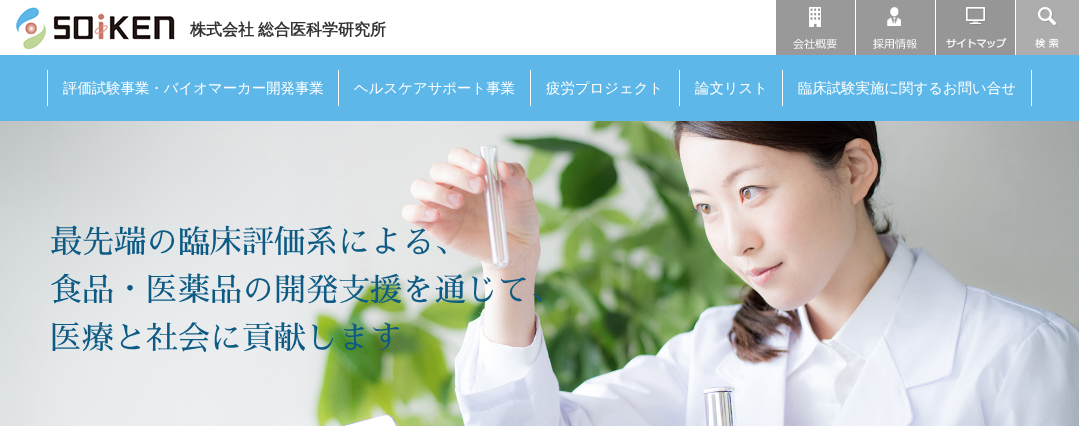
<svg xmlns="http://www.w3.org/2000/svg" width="1079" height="426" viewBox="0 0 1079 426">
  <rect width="100%" height="100%" fill="rgb(255,255,255)"/>
  <image x="16" y="7" width="159" height="43" href="pic1.png"/>
  <g font-family="WenQuanYi Zen Hei" font-size="16" font-weight="bold" fill="rgb(51,51,51)">
    <text x="190" y="35">株式会社</text>
    <text x="258" y="35">総合医科学研究所</text>
  </g>
  <image x="776" y="0" width="79" height="55" href="pic2.png"/>
  <image x="856" y="0" width="79" height="55" href="pic3.png"/>
  <image x="936" y="0" width="79" height="55" href="pic4.png"/>
  <image x="1016" y="0" width="63" height="55" href="pic5.png"/>
  <rect x="0" y="55" width="1079" height="66" fill="rgb(93,183,232)"/>
  <rect x="47" y="70" width="1" height="36" fill="rgb(255,255,255)"/>
  <text x="63" y="93" font-family="WenQuanYi Zen Hei" font-size="14.4" font-weight="500" fill="rgb(255,255,255)">評価試験事業・バイオマーカー開発事業</text>
  <rect x="338" y="70" width="1" height="36" fill="rgb(255,255,255)"/>
  <text x="354" y="93" font-family="WenQuanYi Zen Hei" font-size="14.4" font-weight="500" fill="rgb(255,255,255)">ヘルスケアサポート事業</text>
  <rect x="530" y="70" width="1" height="36" fill="rgb(255,255,255)"/>
  <text x="546" y="93" font-family="WenQuanYi Zen Hei" font-size="14.4" font-weight="500" fill="rgb(255,255,255)">疲労プロジェクト</text>
  <rect x="679" y="70" width="1" height="36" fill="rgb(255,255,255)"/>
  <text x="695" y="93" font-family="WenQuanYi Zen Hei" font-size="14.4" font-weight="500" fill="rgb(255,255,255)">論文リスト</text>
  <rect x="1031" y="70" width="1" height="36" fill="rgb(255,255,255)"/>
  <rect x="782" y="70" width="1" height="36" fill="rgb(255,255,255)"/>
  <text x="798" y="93" font-family="WenQuanYi Zen Hei" font-size="14.4" font-weight="500" fill="rgb(255,255,255)">臨床試験実施に関するお問い合せ</text>
  <image x="0" y="121" width="1079" height="305" href="pic6.png"/>
  <g font-family="Sawarabi Mincho" font-size="32" fill="rgb(13,91,133)">
    <text>
      <tspan x="50" y="253">最先端の臨床評価系による、</tspan>
      <tspan x="50" y="301">食品・医薬品の開発支援を通じて、</tspan>
      <tspan x="50" y="349">医療と社会に貢献します</tspan>
    </text>
  </g>
</svg>
